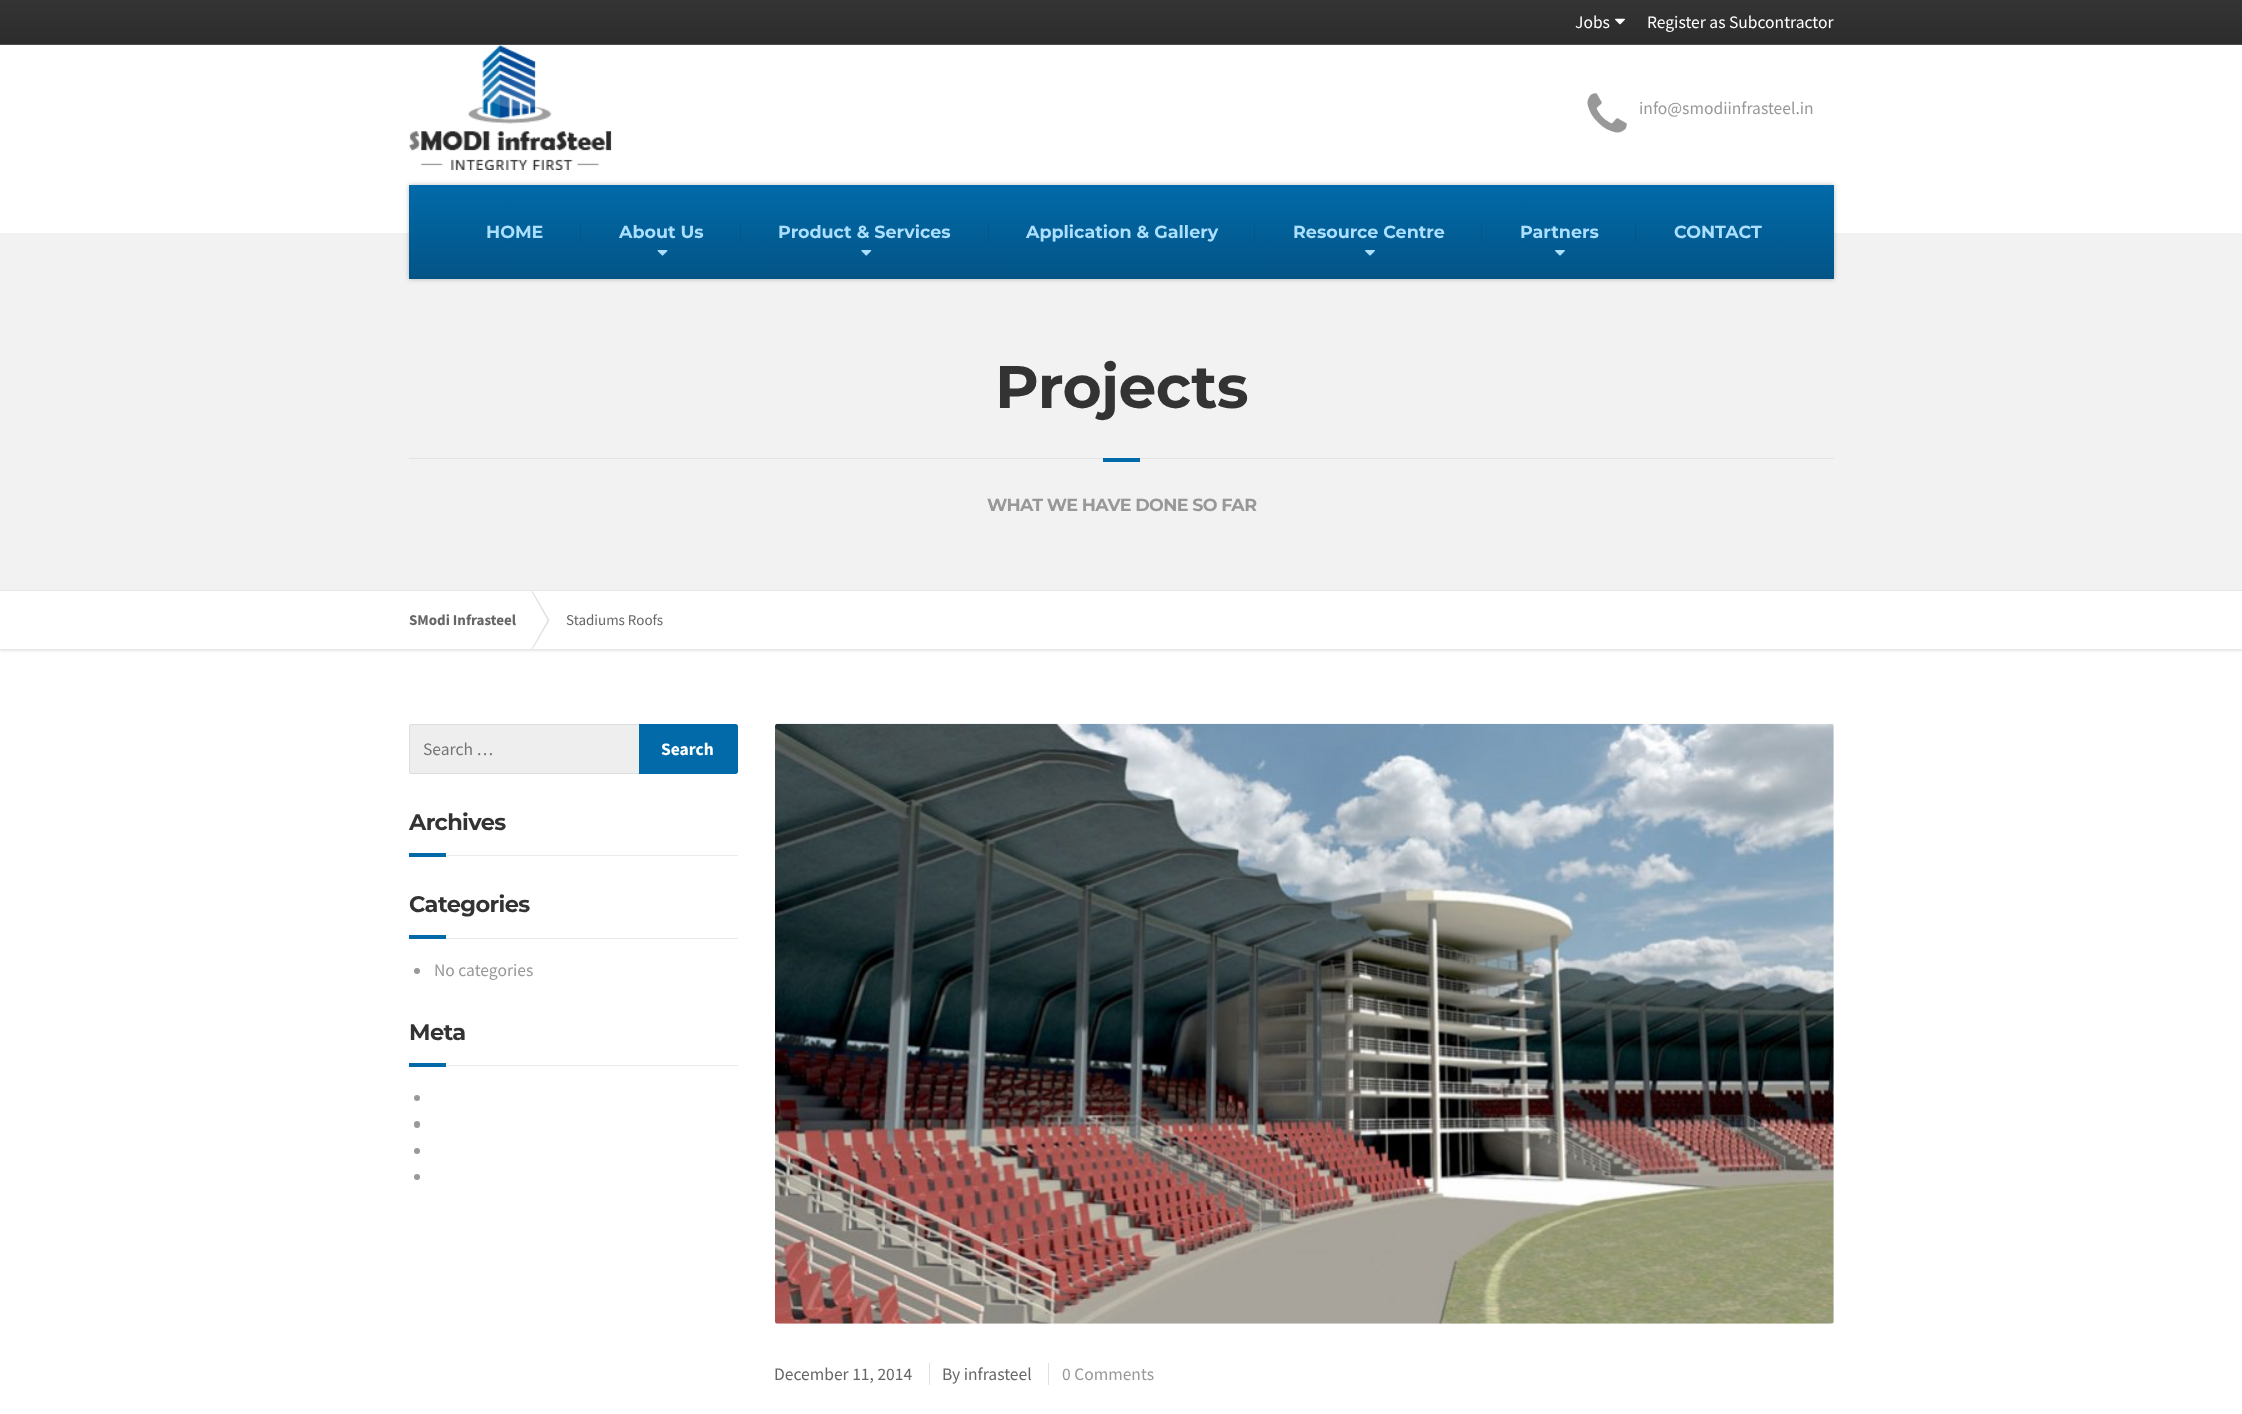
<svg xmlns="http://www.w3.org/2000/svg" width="2242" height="1414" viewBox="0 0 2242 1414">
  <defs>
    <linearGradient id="g1" gradientUnits="userSpaceOnUse" x1="1121" y1="0" x2="1121" y2="44"><stop offset="0" stop-color="rgb(52,52,53)"/><stop offset="1" stop-color="rgb(44,44,45)"/></linearGradient>
    <linearGradient id="g2" gradientUnits="userSpaceOnUse" x1="1121" y1="185" x2="1121" y2="279"><stop offset="0" stop-color="rgb(2,106,169)"/><stop offset="1" stop-color="rgb(2,84,134)"/></linearGradient>
    <linearGradient id="g3" gradientUnits="userSpaceOnUse" x1="1121" y1="185" x2="1121" y2="279"><stop offset="0" stop-color="rgb(2,98,155)"/><stop offset="1" stop-color="rgb(2,77,123)"/></linearGradient>
  </defs>
  <rect width="100%" height="100%" fill="rgb(255,255,255)"/>
  <rect x="0" y="0" width="2242" height="44" fill="url(#g1)"/>
  <rect x="0" y="44" width="2242" height="1" fill="rgb(77,77,79)"/>
  <text x="1575" y="28" font-family="Source Sans Pro" font-size="17.5" fill="rgb(255,255,255)">Jobs</text>
  <image x="1615" y="18" width="10" height="7" href="pic1.png"/>
  <text x="1647" y="28" font-family="Source Sans Pro" font-size="17.5" fill="rgb(255,255,255)">Register as Subcontractor</text>
  <image x="409" y="45" width="203" height="125" href="pic2.png"/>
  <image x="1587" y="93" width="40" height="40" href="pic3.png"/>
  <text x="1639" y="114" font-family="Source Sans Pro" font-size="17.5" fill="rgb(152,152,152)">info@smodiinfrasteel.in</text>
  <rect x="0" y="233" width="2242" height="357" fill="rgb(242,242,242)"/>
  <rect x="409" y="185" width="1425" height="94" fill="rgba(0,0,0,0.25)" filter="blur(2.5px)"/>
  <rect x="409" y="185" width="1425" height="94" fill="url(#g2)"/>
  <rect x="1635" y="223" width="1" height="18" fill="url(#g3)"/>
  <rect x="1481" y="223" width="1" height="18" fill="url(#g3)"/>
  <rect x="1254" y="223" width="1" height="18" fill="url(#g3)"/>
  <rect x="988" y="223" width="1" height="18" fill="url(#g3)"/>
  <rect x="740" y="223" width="1" height="18" fill="url(#g3)"/>
  <rect x="580" y="223" width="1" height="18" fill="url(#g3)"/>
  <g font-family="Montserrat" font-size="17.5" font-weight="bold" fill="rgb(171,223,255)">
    <text x="486" y="238">HOME</text>
    <text x="619" y="238">About Us</text>
  </g>
  <image x="657" y="250" width="11" height="6" href="pic4.png"/>
  <text x="778" y="238" font-family="Montserrat" font-size="17.5" font-weight="bold" fill="rgb(171,223,255)">Product &amp; Services</text>
  <image x="861" y="250" width="11" height="6" href="pic5.png"/>
  <g font-family="Montserrat" font-size="17.5" font-weight="bold" fill="rgb(171,223,255)">
    <text x="1026" y="238">Application &amp; Gallery</text>
    <text x="1293" y="238">Resource Centre</text>
  </g>
  <image x="1365" y="250" width="10" height="6" href="pic6.png"/>
  <text x="1520" y="238" font-family="Montserrat" font-size="17.5" font-weight="bold" fill="rgb(171,223,255)">Partners</text>
  <image x="1555" y="250" width="10" height="6" href="pic6.png"/>
  <text x="1674" y="238" font-family="Montserrat" font-size="17.5" font-weight="bold" fill="rgb(171,223,255)">CONTACT</text>
  <rect x="0" y="590" width="2242" height="1" fill="rgb(230,230,230)"/>
  <text x="995" y="408" font-family="Montserrat" font-size="60" font-weight="bold" letter-spacing="-0.6" fill="rgb(51,51,51)">Projects</text>
  <rect x="409" y="458" width="1425" height="1" fill="rgb(227,227,227)"/>
  <rect x="1103" y="458" width="37" height="4" fill="rgb(2,106,169)"/>
  <text x="987" y="511" font-family="Montserrat" font-size="17.5" font-weight="bold" letter-spacing="-0.6" fill="rgb(152,152,152)">WHAT WE HAVE DONE SO FAR</text>
  <rect x="0" y="594" width="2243" height="57" fill="rgb(230,230,230)" filter="blur(1px)"/>
  <rect x="0" y="593" width="2242" height="56" fill="rgb(255,255,255)"/>
  <text x="409" y="625" font-family="Source Sans Pro" font-size="15" font-weight="bold" fill="rgb(102,102,102)">SModi Infrasteel</text>
  <path d="M531.5 591.5L532.5 591L549.5 620L548 621Z" fill="rgb(226,226,226)"/>
  <path d="M548 619.5L549.5 620.5L532.5 649.5L531.5 649Z" fill="rgb(226,226,226)"/>
  <text x="566" y="625" font-family="Source Sans Pro" font-size="15" fill="rgb(102,102,102)">Stadiums Roofs</text>
  <path d="M411.5 724H639V774H411.5C410 774 409 773 409 771.5V726.5C409 725 410 724 411.5 724Z" fill="rgb(238,238,238)"/>
  <rect x="410" y="724" width="229" height="1" fill="rgb(221,221,221)"/>
  <rect x="410" y="773" width="229" height="1" fill="rgb(221,221,221)"/>
  <rect x="409" y="725" width="1" height="48" fill="rgb(221,221,221)"/>
  <text x="423" y="755" font-family="Source Sans Pro" font-size="17.5" fill="rgb(117,117,117)">Search …</text>
  <path d="M639 724H735.5C737 724 738 725 738 726.5V771.5C738 773 737 774 735.5 774H639Z" fill="rgb(2,106,169)"/>
  <text x="661" y="755" font-family="Source Sans Pro" font-size="17.5" font-weight="bold" fill="rgb(255,255,255)">Search</text>
  <rect x="446" y="855" width="292" height="1" fill="rgb(235,235,235)"/>
  <text x="409" y="830" font-family="Montserrat" font-size="22.5" font-weight="bold" letter-spacing="-0.6" fill="rgb(51,51,51)">Archives</text>
  <rect x="409" y="853" width="37" height="4" fill="rgb(2,106,169)"/>
  <rect x="446" y="938" width="292" height="1" fill="rgb(235,235,235)"/>
  <text x="409" y="912" font-family="Montserrat" font-size="22.5" font-weight="bold" letter-spacing="-0.6" fill="rgb(51,51,51)">Categories</text>
  <rect x="409" y="935" width="37" height="4" fill="rgb(2,106,169)"/>
  <circle cx="417" cy="971" r="3" fill="rgb(153,153,153)"/>
  <text x="434" y="976" font-family="Source Sans Pro" font-size="17.5" fill="rgb(152,152,152)">No categories</text>
  <rect x="446" y="1065" width="292" height="1" fill="rgb(235,235,235)"/>
  <text x="409" y="1040" font-family="Montserrat" font-size="22.5" font-weight="bold" letter-spacing="-0.6" fill="rgb(51,51,51)">Meta</text>
  <rect x="409" y="1063" width="37" height="4" fill="rgb(2,106,169)"/>
  <circle cx="417" cy="1098" r="3" fill="rgb(153,153,153)"/>
  <rect x="414" y="1121" width="6" height="7" rx="3" fill="rgb(153,153,153)"/>
  <circle cx="417" cy="1151" r="3" fill="rgb(153,153,153)"/>
  <circle cx="417" cy="1177" r="3" fill="rgb(153,153,153)"/>
  <image x="775" y="723" width="1059" height="601" href="pic7.png"/>
  <g font-family="Source Sans Pro" font-size="17.5" fill="rgb(102,102,102)">
    <text x="774" y="1380">December 11, 2014</text>
    <text x="942" y="1380">By infrasteel</text>
  </g>
  <rect x="929" y="1363" width="1" height="22" fill="rgb(224,224,224)"/>
  <rect x="1048" y="1363" width="1" height="22" fill="rgb(224,224,224)"/>
  <text x="1062" y="1380" font-family="Source Sans Pro" font-size="17.5" fill="rgb(152,152,152)">0 Comments</text>
</svg>
